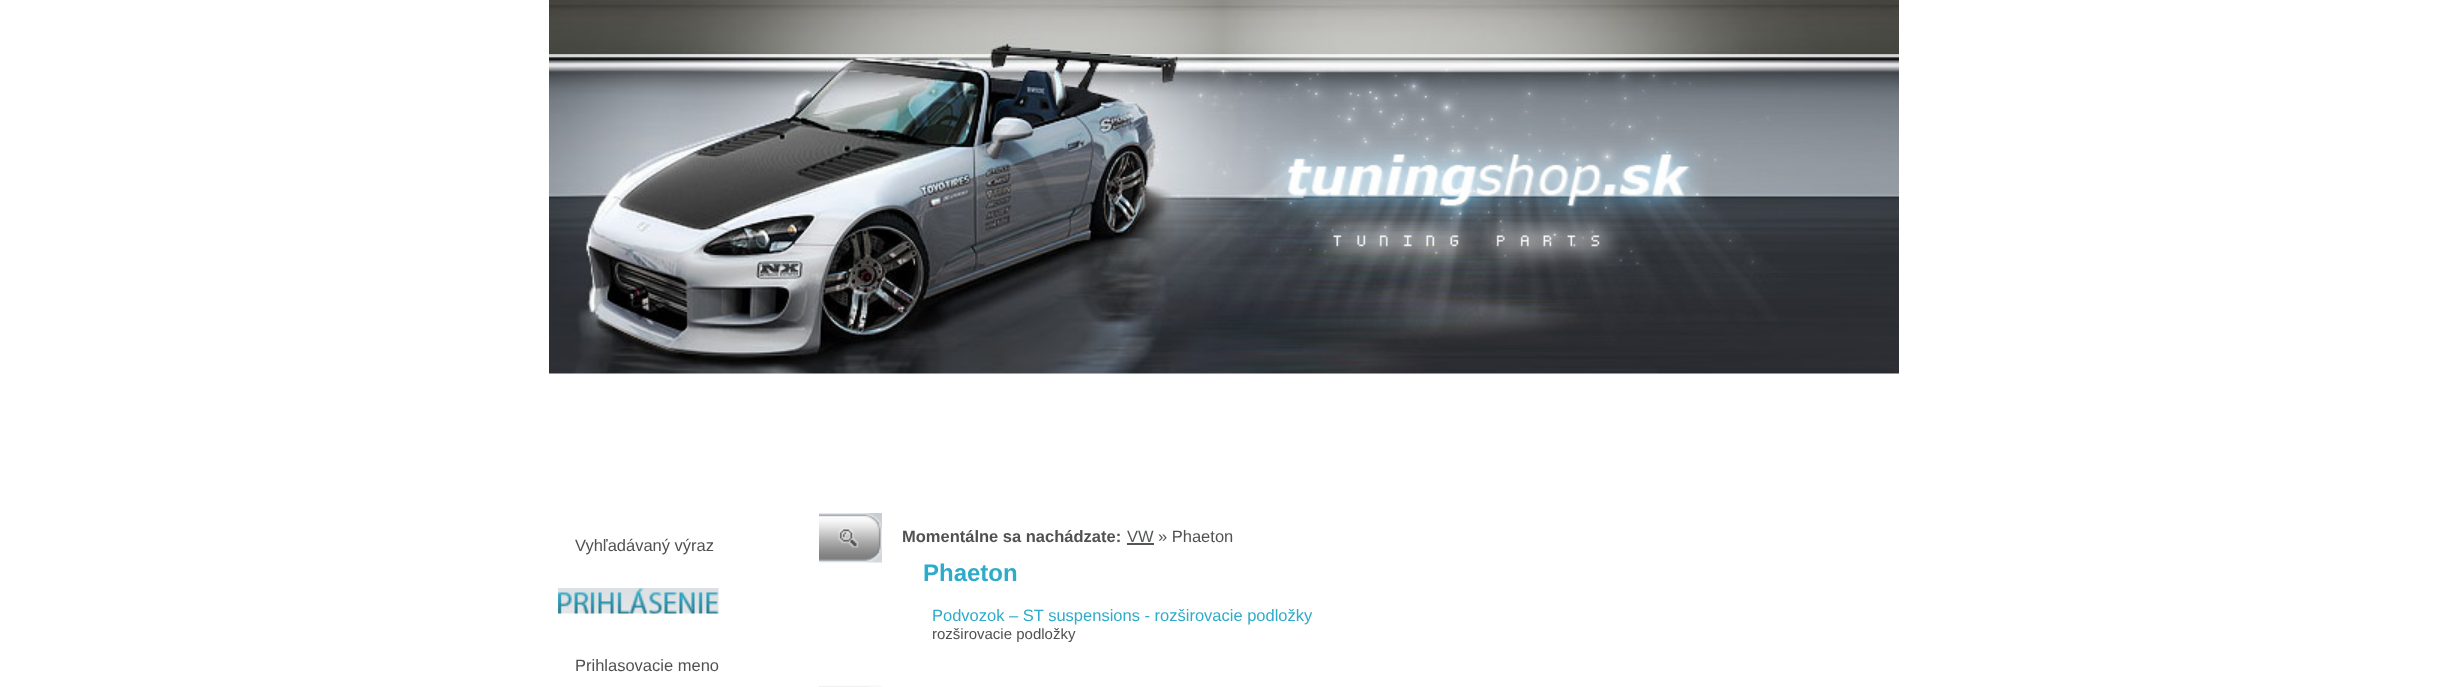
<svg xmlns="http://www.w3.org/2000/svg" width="2447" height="687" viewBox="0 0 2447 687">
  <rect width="100%" height="100%" fill="rgb(255,255,255)"/>
  <image x="549" y="0" width="1350" height="54" href="pic1.png"/>
  <image x="549" y="54" width="1350" height="320" href="pic2.png"/>
  <text x="575" y="551" font-family="Liberation Sans" font-size="16.5" fill="rgb(81,81,81)">Vyhľadávaný výraz</text>
  <image x="819" y="513" width="63" height="50" href="pic3.png"/>
  <image x="558" y="588" width="161" height="26" href="pic4.png"/>
  <text x="575" y="671" font-family="Liberation Sans" font-size="16.5" fill="rgb(81,81,81)">Prihlasovacie meno</text>
  <image x="819" y="685" width="63" height="2" href="pic5.png"/>
  <text x="902" y="542" font-family="Liberation Sans" font-size="16.5" font-weight="bold" fill="rgb(81,81,81)">Momentálne sa nachádzate:</text>
  <text x="1127" y="542" font-family="Liberation Sans" font-size="16.5" fill="rgb(83,87,88)">VW</text>
  <rect x="1127" y="543" width="27" height="2" fill="rgb(83,87,88)"/>
  <text x="1158" y="542" font-family="Liberation Sans" font-size="16.5" fill="rgb(81,81,81)">» Phaeton</text>
  <text x="923" y="581" font-family="Liberation Sans" font-size="24" font-weight="bold" fill="rgb(46,171,201)">Phaeton</text>
  <text x="932" y="621" font-family="Liberation Sans" font-size="16.5" fill="rgb(46,171,201)">Podvozok – ST suspensions - rozširovacie podložky</text>
  <text x="932" y="639" font-family="Liberation Sans" font-size="15" fill="rgb(81,81,81)">rozširovacie podložky</text>
</svg>
